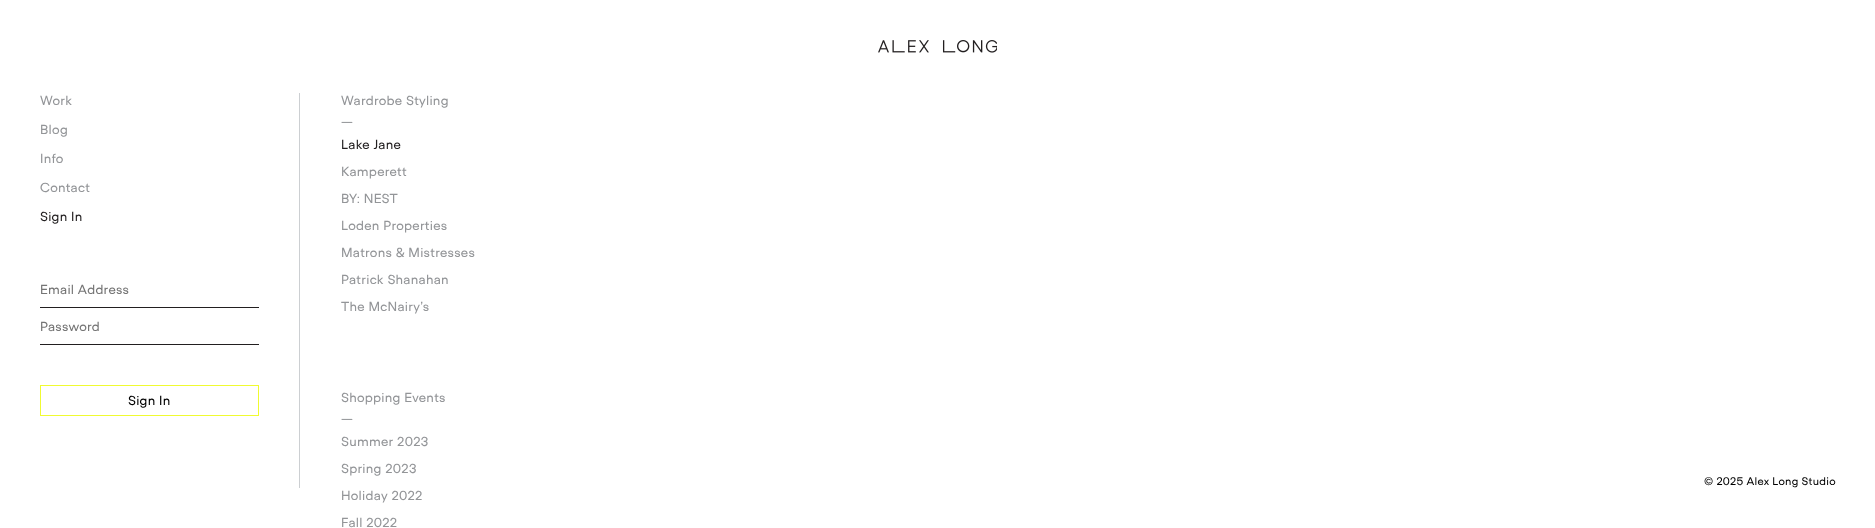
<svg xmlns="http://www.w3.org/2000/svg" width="1875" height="528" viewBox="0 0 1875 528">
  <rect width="100%" height="100%" fill="rgb(255,255,255)"/>
  <image x="878" y="40" width="119" height="13" href="pic1.png"/>
  <rect x="299" y="93" width="1" height="395" fill="rgb(204,207,210)"/>
  <g font-family="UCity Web" font-size="12.75" letter-spacing="0.25" fill="rgb(147,149,152)">
    <text x="40" y="105">Work</text>
    <text x="40" y="134">Blog</text>
    <text x="40" y="163">Info</text>
    <text x="40" y="192">Contact</text>
  </g>
  <text x="40" y="221" font-family="UCity Web" font-size="12.75" letter-spacing="0.25" fill="rgb(34,31,32)">Sign In</text>
  <rect x="40" y="307" width="219" height="1" fill="rgb(34,31,32)"/>
  <text x="40" y="294" font-family="UCity Web" font-size="12.75" letter-spacing="0.25" fill="rgb(117,117,117)">Email Address</text>
  <rect x="40" y="344" width="219" height="1" fill="rgb(34,31,32)"/>
  <text x="40" y="331" font-family="UCity Web" font-size="12.75" letter-spacing="0.25" fill="rgb(117,117,117)">Password</text>
  <rect x="40.5" y="385.5" width="218" height="30" fill="none" stroke="rgb(240,251,49)"/>
  <text x="128" y="405" font-family="UCity Web" font-size="12.75" letter-spacing="0.25" fill="rgb(0,0,0)">Sign In</text>
  <text x="1704" y="485" font-family="UCity Web" font-size="10.75" letter-spacing="0.25" fill="rgb(0,0,0)">© 2025 Alex Long Studio</text>
  <g font-family="UCity Web" font-size="12.75" letter-spacing="0.25" fill="rgb(147,149,152)">
    <text>
      <tspan x="341" y="105">Wardrobe Styling</tspan>
      <tspan x="341" y="126">—</tspan>
    </text>
  </g>
  <text x="341" y="149" font-family="UCity Web" font-size="12.75" letter-spacing="0.25" fill="rgb(34,31,32)">Lake Jane</text>
  <g font-family="UCity Web" font-size="12.75" letter-spacing="0.25" fill="rgb(147,149,152)">
    <text x="341" y="176">Kamperett</text>
    <text x="341" y="203">BY: NEST</text>
    <text x="341" y="230">Loden Properties</text>
    <text x="341" y="257">Matrons &amp; Mistresses</text>
    <text x="341" y="284">Patrick Shanahan</text>
    <text x="341" y="311">The McNairy’s</text>
    <text>
      <tspan x="341" y="402">Shopping Events</tspan>
      <tspan x="341" y="423">—</tspan>
      <tspan x="341" y="446">Summer 2023</tspan>
    </text>
    <text x="341" y="473">Spring 2023</text>
    <text x="341" y="500">Holiday 2022</text>
    <text x="341" y="527">Fall 2022</text>
  </g>
</svg>
